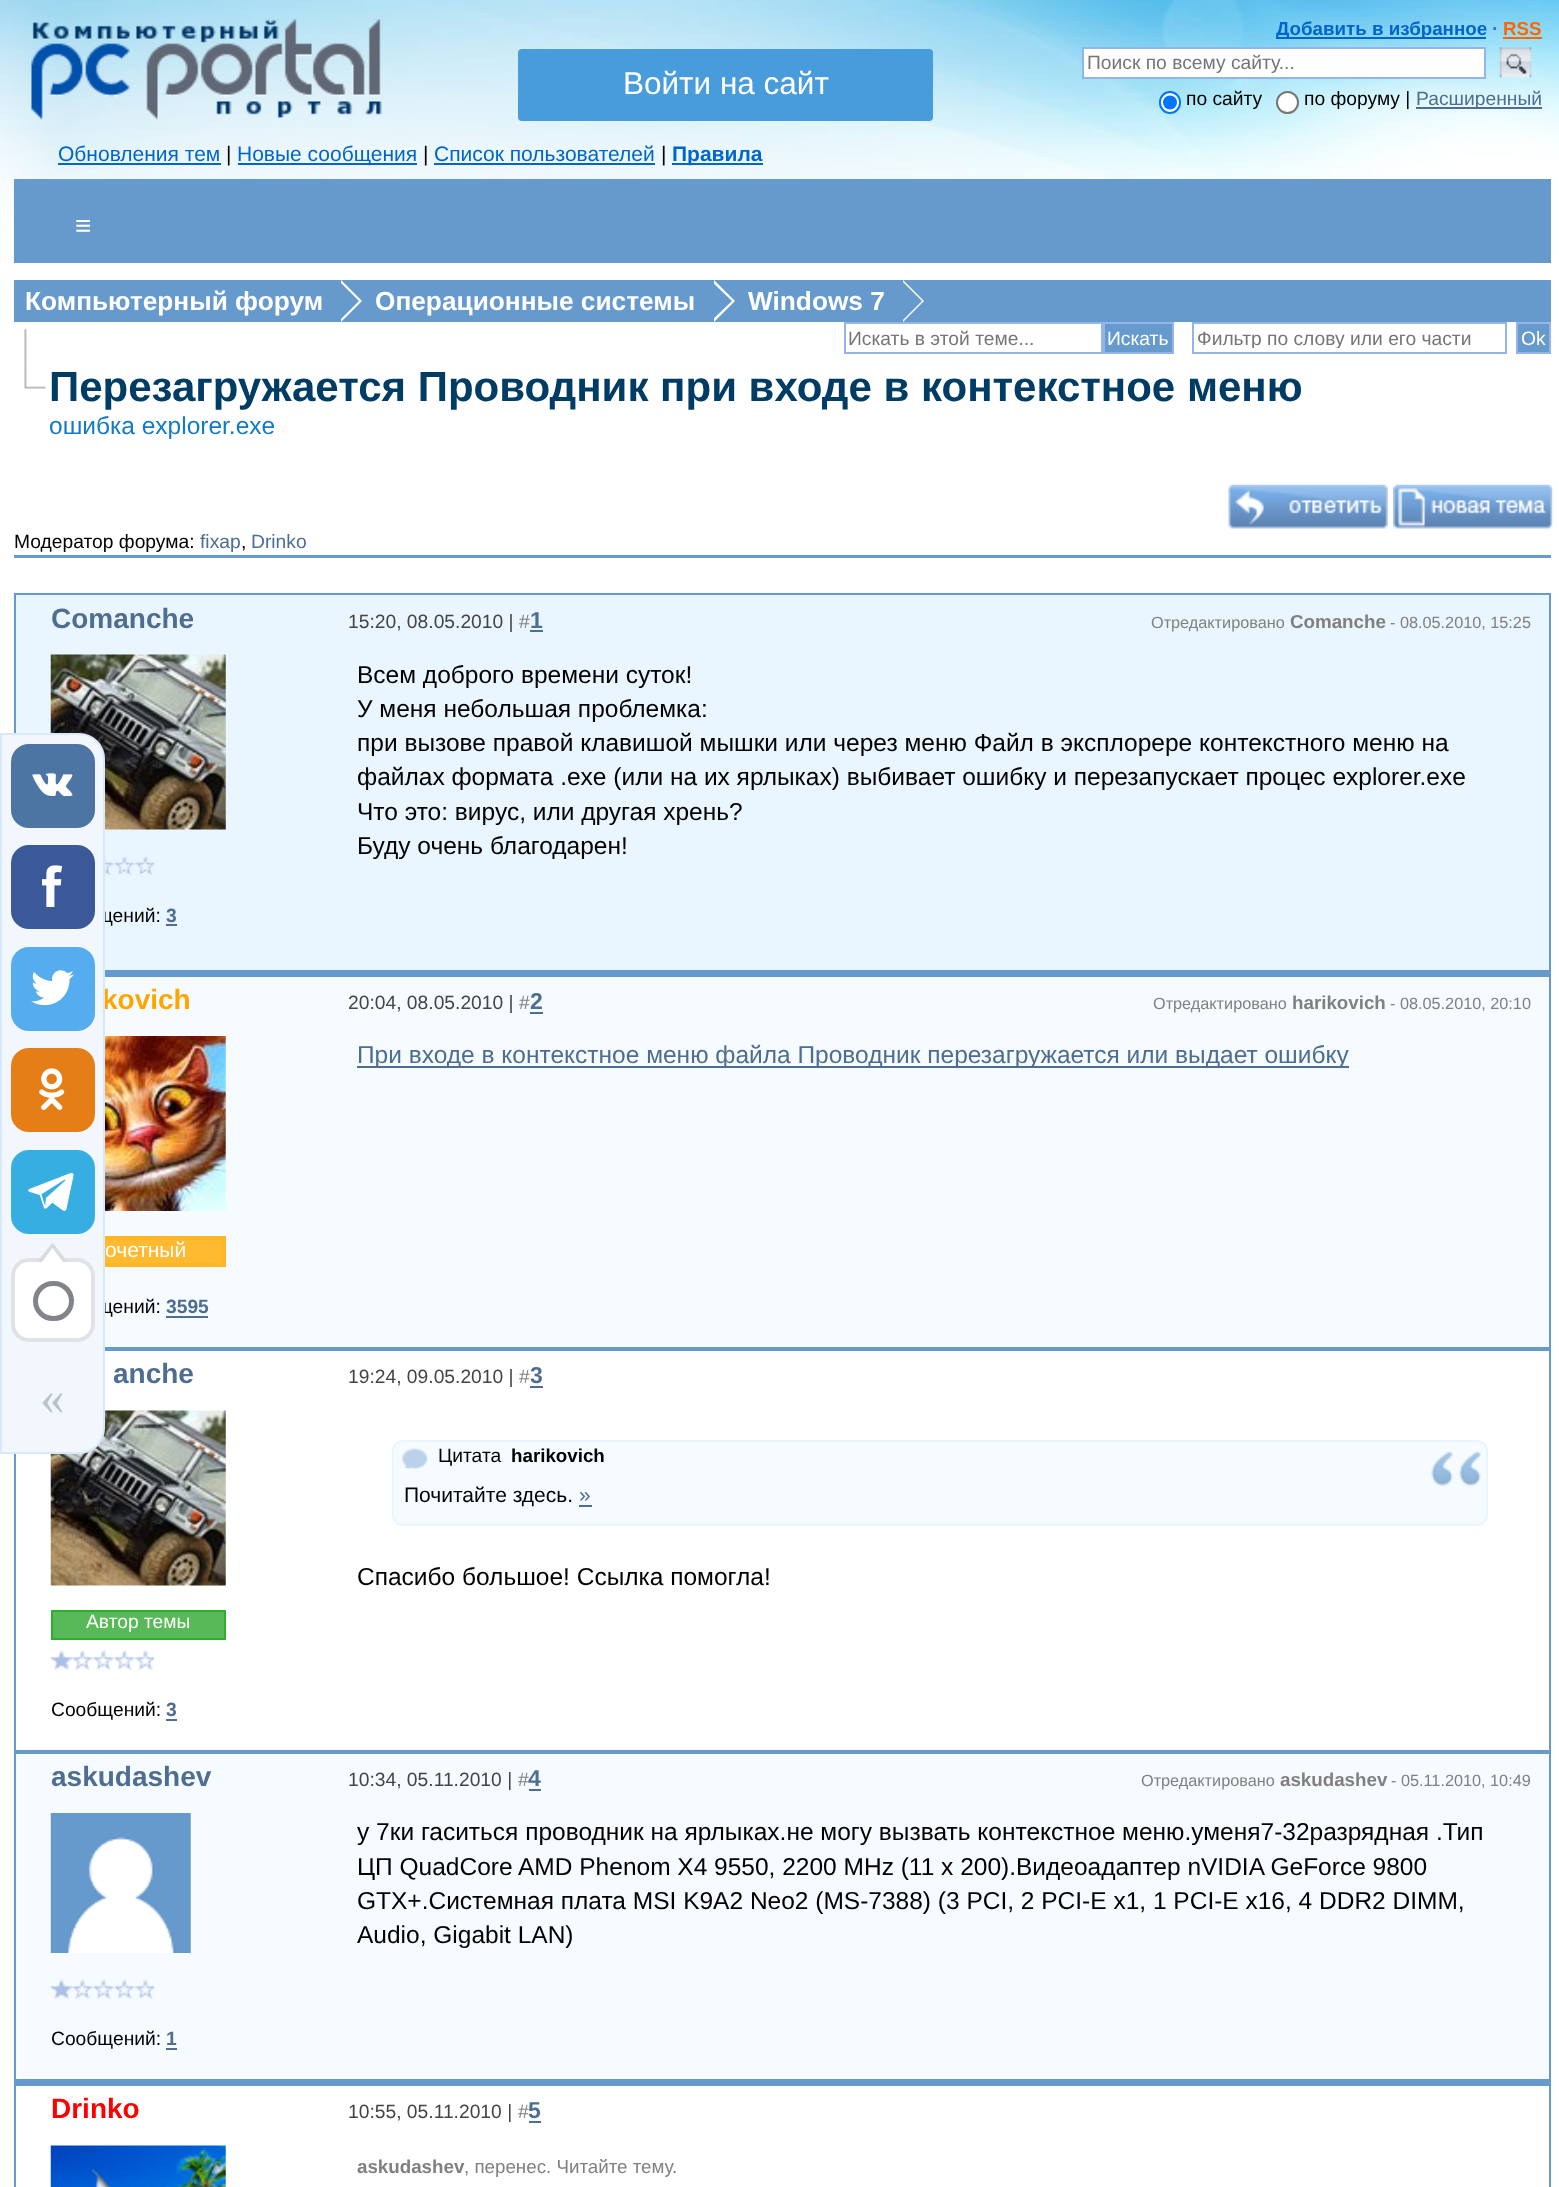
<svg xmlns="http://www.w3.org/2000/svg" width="1559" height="2187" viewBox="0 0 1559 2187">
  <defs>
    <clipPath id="clip1"><rect x="1197" y="327" width="305" height="21"/></clipPath>
  </defs>
  <rect width="100%" height="100%" fill="rgb(255,255,255)"/>
  <image x="0" y="0" width="1559" height="238" href="pic1.png"/>
  <image x="31" y="19" width="351" height="102" href="pic2.png"/>
  <rect x="518" y="49" width="415" height="72" rx="4" fill="rgb(73,156,220)"/>
  <text x="623" y="94" font-family="Liberation Sans" font-size="31.5" fill="rgb(255,255,255)">Войти на сайт</text>
  <rect x="1276" y="37" width="210" height="2" fill="rgb(0,102,204)"/>
  <text x="1276" y="35" font-family="Liberation Sans" font-size="18.75" font-weight="bold" fill="rgb(0,102,204)">Добавить в избранное</text>
  <text x="1492" y="35" font-family="Liberation Sans" font-size="19.25" font-weight="bold" fill="rgb(51,102,255)">·</text>
  <text x="1503" y="35" font-family="Liberation Sans" font-size="18.75" font-weight="bold" fill="rgb(255,102,0)">RSS</text>
  <rect x="1503" y="37" width="39" height="2" fill="rgb(255,102,0)"/>
  <rect x="1083" y="48" width="402" height="30" fill="rgb(255,255,255)" stroke="rgb(147,181,233)" stroke-width="2"/>
  <text x="1087" y="69" font-family="Liberation Sans" font-size="19.25" fill="rgb(117,117,117)">Поиск по всему сайту...</text>
  <image x="1499" y="47" width="33" height="31" href="pic3.png"/>
  <rect x="1160" y="92" width="20" height="21" rx="10" fill="rgb(255,255,255)" stroke="rgb(0,117,255)" stroke-width="2"/>
  <circle cx="1170" cy="102.5" r="7" fill="rgb(0,117,255)"/>
  <text x="1186" y="105" font-family="Liberation Sans" font-size="19.25" fill="rgb(0,0,0)">по сайту</text>
  <circle cx="1287.5" cy="102.5" r="10.5" fill="rgb(255,255,255)" stroke="rgb(118,118,118)" stroke-width="2"/>
  <text x="1304" y="105" font-family="Liberation Sans" font-size="19.25" fill="rgb(0,0,0)">по форуму |</text>
  <rect x="1416" y="107" width="126" height="2" fill="rgb(77,109,145)"/>
  <text x="1416" y="105" font-family="Liberation Sans" font-size="19.25" fill="rgb(77,109,145)">Расширенный</text>
  <text x="58" y="161" font-family="Liberation Sans" font-size="21" fill="rgb(0,102,204)">Обновления тем</text>
  <rect x="58" y="163" width="163" height="2" fill="rgb(0,102,204)"/>
  <text x="226" y="161" font-family="Liberation Sans" font-size="21" fill="rgb(0,0,0)">|</text>
  <rect x="238" y="163" width="179" height="2" fill="rgb(0,102,204)"/>
  <text x="237" y="161" font-family="Liberation Sans" font-size="21" fill="rgb(0,102,204)">Новые сообщения</text>
  <text x="423" y="161" font-family="Liberation Sans" font-size="21" fill="rgb(0,0,0)">|</text>
  <text x="434" y="161" font-family="Liberation Sans" font-size="21" fill="rgb(0,102,204)">Список пользователей</text>
  <rect x="434" y="163" width="221" height="2" fill="rgb(0,102,204)"/>
  <text x="661" y="161" font-family="Liberation Sans" font-size="21" fill="rgb(0,0,0)">|</text>
  <rect x="672" y="163" width="91" height="2" fill="rgb(0,102,204)"/>
  <text x="672" y="161" font-family="Liberation Sans" font-size="21" font-weight="bold" fill="rgb(0,102,204)">Правила</text>
  <rect x="14" y="179" width="1537" height="84" fill="rgb(102,153,204)"/>
  <text x="75" y="235" font-family="Liberation Sans" font-size="28" fill="rgb(255,255,255)">≡</text>
  <rect x="14" y="280" width="1537" height="42" fill="rgb(102,153,204)"/>
  <text x="25" y="310" font-family="Liberation Sans" font-size="26.25" font-weight="bold" fill="rgb(255,255,255)">Компьютерный форум</text>
  <path d="M341 322V280L362 301Z" fill="rgb(255,255,255)"/>
  <path d="M338 322V280L359 301Z" fill="rgb(102,153,204)"/>
  <text x="375" y="310" font-family="Liberation Sans" font-size="26.25" font-weight="bold" fill="rgb(255,255,255)">Операционные системы</text>
  <path d="M714 322V280L735 301Z" fill="rgb(255,255,255)"/>
  <path d="M710 322V280L732 301Z" fill="rgb(102,153,204)"/>
  <text x="748" y="310" font-family="Liberation Sans" font-size="26.25" font-weight="bold" fill="rgb(255,255,255)">Windows 7</text>
  <path d="M903 322V280L924 301Z" fill="rgb(255,255,255)"/>
  <path d="M901 322V280L922 301Z" fill="rgb(102,153,204)"/>
  <image x="24" y="328" width="3" height="35" href="pic4.png"/>
  <rect x="845" y="323" width="257" height="30" fill="none" stroke="rgb(147,181,233)" stroke-width="2"/>
  <text x="848" y="345" font-family="Liberation Sans" font-size="19.25" fill="rgb(117,117,117)">Искать в этой теме...</text>
  <rect x="1104" y="323" width="69" height="30" fill="rgb(102,153,204)" stroke="rgb(147,181,233)" stroke-width="2"/>
  <text x="1107" y="345" font-family="Liberation Sans" font-size="19.25" fill="rgb(255,255,255)">Искать</text>
  <rect x="1193" y="323" width="313" height="30" fill="none" stroke="rgb(147,181,233)" stroke-width="2"/>
  <g clip-path="url(#clip1)">
    <text x="1197" y="345" font-family="Liberation Sans" font-size="19.25" fill="rgb(117,117,117)">Фильтр по слову или его части</text>
  </g>
  <rect x="1517" y="323" width="33" height="30" fill="rgb(102,153,204)" stroke="rgb(147,181,233)" stroke-width="2"/>
  <text x="1521" y="345" font-family="Liberation Sans" font-size="19.25" fill="rgb(255,255,255)">Ok</text>
  <image x="24" y="362" width="22" height="27" href="pic5.png"/>
  <text x="49" y="401" font-family="Liberation Sans" font-size="42" font-weight="bold" fill="rgb(0,60,100)">Перезагружается Проводник при входе в контекстное меню</text>
  <text x="49" y="434" font-family="Liberation Sans" font-size="24.5" fill="rgb(19,123,198)">ошибка explorer.exe</text>
  <image x="1228" y="484" width="160" height="45" href="pic6.png"/>
  <image x="1393" y="484" width="160" height="45" href="pic7.png"/>
  <text x="14" y="548" font-family="Liberation Sans" font-size="19.25" fill="rgb(0,0,0)">Модератор форума:</text>
  <text x="200" y="548" font-family="Liberation Sans" font-size="19.25" fill="rgb(77,109,145)">fixap</text>
  <text x="241" y="548" font-family="Liberation Sans" font-size="19.25" fill="rgb(0,0,0)">,</text>
  <text x="251" y="548" font-family="Liberation Sans" font-size="19.25" fill="rgb(77,109,145)">Drinko</text>
  <rect x="14" y="555" width="1537" height="3" fill="rgb(102,153,204)"/>
  <rect x="16" y="595" width="1533" height="375" fill="rgb(233,245,255)"/>
  <rect x="15" y="594" width="1535" height="380" fill="none" stroke="rgb(102,153,204)" stroke-width="2"/>
  <text x="51" y="628" font-family="Liberation Sans" font-size="28" font-weight="bold" fill="rgb(77,109,145)">Comanche</text>
  <text x="348" y="628" font-family="Liberation Sans" font-size="19.25" fill="rgb(68,68,68)">15:20, 08.05.2010 |</text>
  <text x="519" y="628" font-family="Liberation Sans" font-size="19.25" fill="rgb(128,128,128)">#</text>
  <text x="530" y="628" font-family="Liberation Sans" font-size="23" font-weight="bold" fill="rgb(77,109,145)">1</text>
  <rect x="530" y="630" width="13" height="2" fill="rgb(77,109,145)"/>
  <text x="1151" y="628" font-family="Liberation Sans" font-size="16.25" fill="rgb(128,128,128)">Отредактировано</text>
  <text x="1290" y="628" font-family="Liberation Sans" font-size="18.75" font-weight="bold" fill="rgb(128,128,128)">Comanche</text>
  <text x="1390" y="628" font-family="Liberation Sans" font-size="16.25" fill="rgb(128,128,128)">- 08.05.2010, 15:25</text>
  <g font-family="Liberation Sans" font-size="24.5" fill="rgb(0,0,0)">
    <text>
      <tspan x="357" y="683">Всем доброго времени суток!</tspan>
      <tspan x="357" y="717">У меня небольшая проблемка:</tspan>
      <tspan x="357" y="751">при вызове правой клавишой мышки или через меню Файл в эксплорере контекстного меню на</tspan>
      <tspan x="357" y="785">файлах формата .exe (или на их ярлыках) выбивает ошибку и перезапускает процес explorer.exe</tspan>
      <tspan x="357" y="820">Что это: вирус, или другая хрень?</tspan>
      <tspan x="357" y="854">Буду очень благодарен!</tspan>
    </text>
  </g>
  <image x="50" y="654" width="176" height="176" href="pic8.png"/>
  <image x="105" y="856" width="49" height="19" href="pic9.png"/>
  <text x="97" y="922" font-family="Liberation Sans" font-size="19.25" fill="rgb(0,0,0)">щений:</text>
  <text x="166" y="922" font-family="Liberation Sans" font-size="19.25" font-weight="bold" fill="rgb(77,109,145)">3</text>
  <rect x="166" y="924" width="11" height="2" fill="rgb(77,109,145)"/>
  <rect x="105" y="970" width="1444" height="3" fill="rgb(102,153,204)"/>
  <rect x="105" y="977" width="1444" height="370" fill="rgb(246,251,255)"/>
  <rect x="15" y="976" width="1535" height="372" fill="none" stroke="rgb(102,153,204)" stroke-width="2"/>
  <text x="102" y="1009" font-family="Liberation Sans" font-size="28" font-weight="bold" fill="rgb(255,165,0)">kovich</text>
  <text x="348" y="1009" font-family="Liberation Sans" font-size="19.25" fill="rgb(68,68,68)">20:04, 08.05.2010 |</text>
  <text x="519" y="1009" font-family="Liberation Sans" font-size="19.25" fill="rgb(128,128,128)">#</text>
  <text x="530" y="1009" font-family="Liberation Sans" font-size="23" font-weight="bold" fill="rgb(77,109,145)">2</text>
  <rect x="530" y="1012" width="13" height="2" fill="rgb(77,109,145)"/>
  <text x="1153" y="1009" font-family="Liberation Sans" font-size="16.25" fill="rgb(128,128,128)">Отредактировано</text>
  <text x="1292" y="1009" font-family="Liberation Sans" font-size="18.75" font-weight="bold" fill="rgb(128,128,128)">harikovich</text>
  <text x="1390" y="1009" font-family="Liberation Sans" font-size="16.25" fill="rgb(128,128,128)">- 08.05.2010, 20:10</text>
  <rect x="357" y="1066" width="992" height="2" fill="rgb(77,109,145)"/>
  <text x="357" y="1063" font-family="Liberation Sans" font-size="24.5" fill="rgb(77,109,145)">При входе в контекстное меню файла Проводник перезагружается или выдает ошибку</text>
  <image x="105" y="1036" width="121" height="175" href="pic10.png"/>
  <rect x="105" y="1240" width="117" height="23" fill="rgb(255,186,49)"/>
  <rect x="53" y="1238" width="171" height="27" fill="none" stroke="rgb(255,182,36)" stroke-width="4"/>
  <text x="105" y="1257" font-family="Liberation Sans" font-size="21" fill="rgb(255,255,255)">очетный</text>
  <text x="97" y="1313" font-family="Liberation Sans" font-size="19.25" fill="rgb(0,0,0)">щений:</text>
  <text x="166" y="1313" font-family="Liberation Sans" font-size="19.25" font-weight="bold" fill="rgb(77,109,145)">3595</text>
  <rect x="166" y="1316" width="42" height="2" fill="rgb(77,109,145)"/>
  <rect x="15" y="1350" width="1535" height="401" fill="none" stroke="rgb(102,153,204)" stroke-width="2"/>
  <text x="113" y="1383" font-family="Liberation Sans" font-size="28" font-weight="bold" fill="rgb(77,109,145)">anche</text>
  <text x="348" y="1383" font-family="Liberation Sans" font-size="19.25" fill="rgb(68,68,68)">19:24, 09.05.2010 |</text>
  <text x="519" y="1383" font-family="Liberation Sans" font-size="19.25" fill="rgb(128,128,128)">#</text>
  <text x="530" y="1383" font-family="Liberation Sans" font-size="23" font-weight="bold" fill="rgb(77,109,145)">3</text>
  <rect x="530" y="1386" width="13" height="2" fill="rgb(77,109,145)"/>
  <rect x="392" y="1440" width="1096" height="86" rx="11" fill="rgb(246,251,255)"/>
  <image x="1431" y="1451" width="50" height="35" href="pic11.png"/>
  <rect x="393" y="1441" width="1094" height="84" rx="10" fill="none" stroke="rgb(234,246,255)" stroke-width="2"/>
  <image x="402" y="1448" width="26" height="21" href="pic12.png"/>
  <text x="438" y="1462" font-family="Liberation Sans" font-size="19.25" fill="rgb(0,0,0)">Цитата</text>
  <text x="511" y="1462" font-family="Liberation Sans" font-size="18.75" font-weight="bold" fill="rgb(0,0,0)">harikovich</text>
  <text x="404" y="1502" font-family="Liberation Sans" font-size="21" fill="rgb(0,0,0)">Почитайте здесь.</text>
  <text x="579" y="1502" font-family="Liberation Sans" font-size="21" fill="rgb(77,109,145)">»</text>
  <rect x="579" y="1505" width="13" height="2" fill="rgb(77,109,145)"/>
  <text x="357" y="1585" font-family="Liberation Sans" font-size="24.5" fill="rgb(0,0,0)">Спасибо большое! Ссылка помогла!</text>
  <image x="50" y="1410" width="176" height="176" href="pic13.png"/>
  <rect x="52" y="1611" width="173" height="28" fill="rgb(87,185,87)" stroke="rgb(47,173,47)" stroke-width="2"/>
  <text x="86" y="1628" font-family="Liberation Sans" font-size="19.25" fill="rgb(255,255,255)">Автор темы</text>
  <image x="50" y="1650" width="104" height="20" href="pic14.png"/>
  <text x="51" y="1716" font-family="Liberation Sans" font-size="19.25" fill="rgb(0,0,0)">Сообщений:</text>
  <text x="166" y="1716" font-family="Liberation Sans" font-size="19.25" font-weight="bold" fill="rgb(77,109,145)">3</text>
  <rect x="166" y="1719" width="11" height="2" fill="rgb(77,109,145)"/>
  <rect x="16" y="1754" width="1533" height="325" fill="rgb(246,251,255)"/>
  <rect x="15" y="1753" width="1535" height="330" fill="none" stroke="rgb(102,153,204)" stroke-width="2"/>
  <text x="51" y="1786" font-family="Liberation Sans" font-size="28" font-weight="bold" fill="rgb(77,109,145)">askudashev</text>
  <text x="348" y="1786" font-family="Liberation Sans" font-size="19.25" fill="rgb(68,68,68)">10:34, 05.11.2010 |</text>
  <text x="518" y="1786" font-family="Liberation Sans" font-size="19.25" fill="rgb(128,128,128)">#</text>
  <text x="528" y="1786" font-family="Liberation Sans" font-size="23" font-weight="bold" fill="rgb(77,109,145)">4</text>
  <rect x="529" y="1789" width="12" height="2" fill="rgb(77,109,145)"/>
  <text x="1141" y="1786" font-family="Liberation Sans" font-size="16.25" fill="rgb(128,128,128)">Отредактировано</text>
  <text x="1280" y="1786" font-family="Liberation Sans" font-size="18.75" font-weight="bold" fill="rgb(128,128,128)">askudashev</text>
  <text x="1391" y="1786" font-family="Liberation Sans" font-size="16.25" fill="rgb(128,128,128)">- 05.11.2010, 10:49</text>
  <g font-family="Liberation Sans" font-size="24.5" fill="rgb(0,0,0)">
    <text>
      <tspan x="357" y="1840">у 7ки гаситься проводник на ярлыках.не могу вызвать контекстное меню.уменя7-32разрядная .Тип</tspan>
      <tspan x="357" y="1875">ЦП QuadCore AMD Phenom X4 9550, 2200 MHz (11 x 200).Видеоадаптер nVIDIA GeForce 9800</tspan>
      <tspan x="357" y="1909">GTX+.Системная плата MSI K9A2 Neo2 (MS-7388) (3 PCI, 2 PCI-E x1, 1 PCI-E x16, 4 DDR2 DIMM,</tspan>
      <tspan x="357" y="1943">Audio, Gigabit LAN)</tspan>
    </text>
  </g>
  <image x="50" y="1813" width="141" height="140" href="pic15.png"/>
  <image x="50" y="1979" width="104" height="20" href="pic16.png"/>
  <text x="51" y="2045" font-family="Liberation Sans" font-size="19.25" fill="rgb(0,0,0)">Сообщений:</text>
  <text x="166" y="2045" font-family="Liberation Sans" font-size="19.25" font-weight="bold" fill="rgb(77,109,145)">1</text>
  <rect x="166" y="2048" width="11" height="2" fill="rgb(77,109,145)"/>
  <rect x="16" y="2079" width="1533" height="3" fill="rgb(102,153,204)"/>
  <rect x="15" y="2085" width="1535" height="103" fill="none" stroke="rgb(102,153,204)" stroke-width="2"/>
  <text x="51" y="2118" font-family="Liberation Sans" font-size="28" font-weight="bold" fill="rgb(255,0,0)">Drinko</text>
  <text x="348" y="2118" font-family="Liberation Sans" font-size="19.25" fill="rgb(68,68,68)">10:55, 05.11.2010 |</text>
  <text x="518" y="2118" font-family="Liberation Sans" font-size="19.25" fill="rgb(128,128,128)">#</text>
  <text x="528" y="2118" font-family="Liberation Sans" font-size="23" font-weight="bold" fill="rgb(77,109,145)">5</text>
  <rect x="529" y="2121" width="12" height="2" fill="rgb(77,109,145)"/>
  <image x="50" y="2145" width="176" height="42" href="pic17.png"/>
  <text x="357" y="2173" font-family="Liberation Sans" font-size="18.75" font-weight="bold" fill="rgb(128,128,128)">askudashev</text>
  <text x="464" y="2173" font-family="Liberation Sans" font-size="18.75" fill="rgb(128,128,128)">, перенес. Читайте тему.</text>
  <path d="M1 734H79C93 734 104 745 104 759V1428C104 1442 93 1453 79 1453H1Z" fill="rgb(242,247,253)" stroke="rgb(216,233,252)" stroke-width="2"/>
  <rect x="11" y="744" width="84" height="84" rx="18" fill="rgb(77,117,163)"/>
  <image x="32" y="773" width="41" height="24" href="pic18.png"/>
  <rect x="11" y="845" width="84" height="84" rx="18" fill="rgb(59,89,152)"/>
  <image x="42" y="865" width="21" height="42" href="pic19.png"/>
  <rect x="11" y="947" width="84" height="84" rx="18" fill="rgb(85,172,238)"/>
  <image x="31" y="970" width="43" height="36" href="pic20.png"/>
  <rect x="11" y="1048" width="84" height="84" rx="18" fill="rgb(230,126,23)"/>
  <image x="39" y="1068" width="26" height="42" href="pic21.png"/>
  <rect x="11" y="1150" width="84" height="84" rx="18" fill="rgb(55,174,226)"/>
  <image x="28" y="1172" width="46" height="39" href="pic22.png"/>
  <rect x="13" y="1260" width="80" height="80" rx="16" fill="rgb(255,255,255)" stroke="rgb(224,226,230)" stroke-width="4"/>
  <path d="M68 1262H37L52.5 1242.5Z" fill="rgb(216,220,222)"/>
  <path d="M63 1262H42L52.5 1248Z" fill="rgb(255,255,255)"/>
  <rect x="35.5" y="1283.5" width="36" height="35" rx="17.5" fill="none" stroke="rgb(129,133,139)" stroke-width="5"/>
  <text x="40" y="1414" font-family="Liberation Serif" font-size="49" fill="rgb(188,195,199)">«</text>
</svg>
